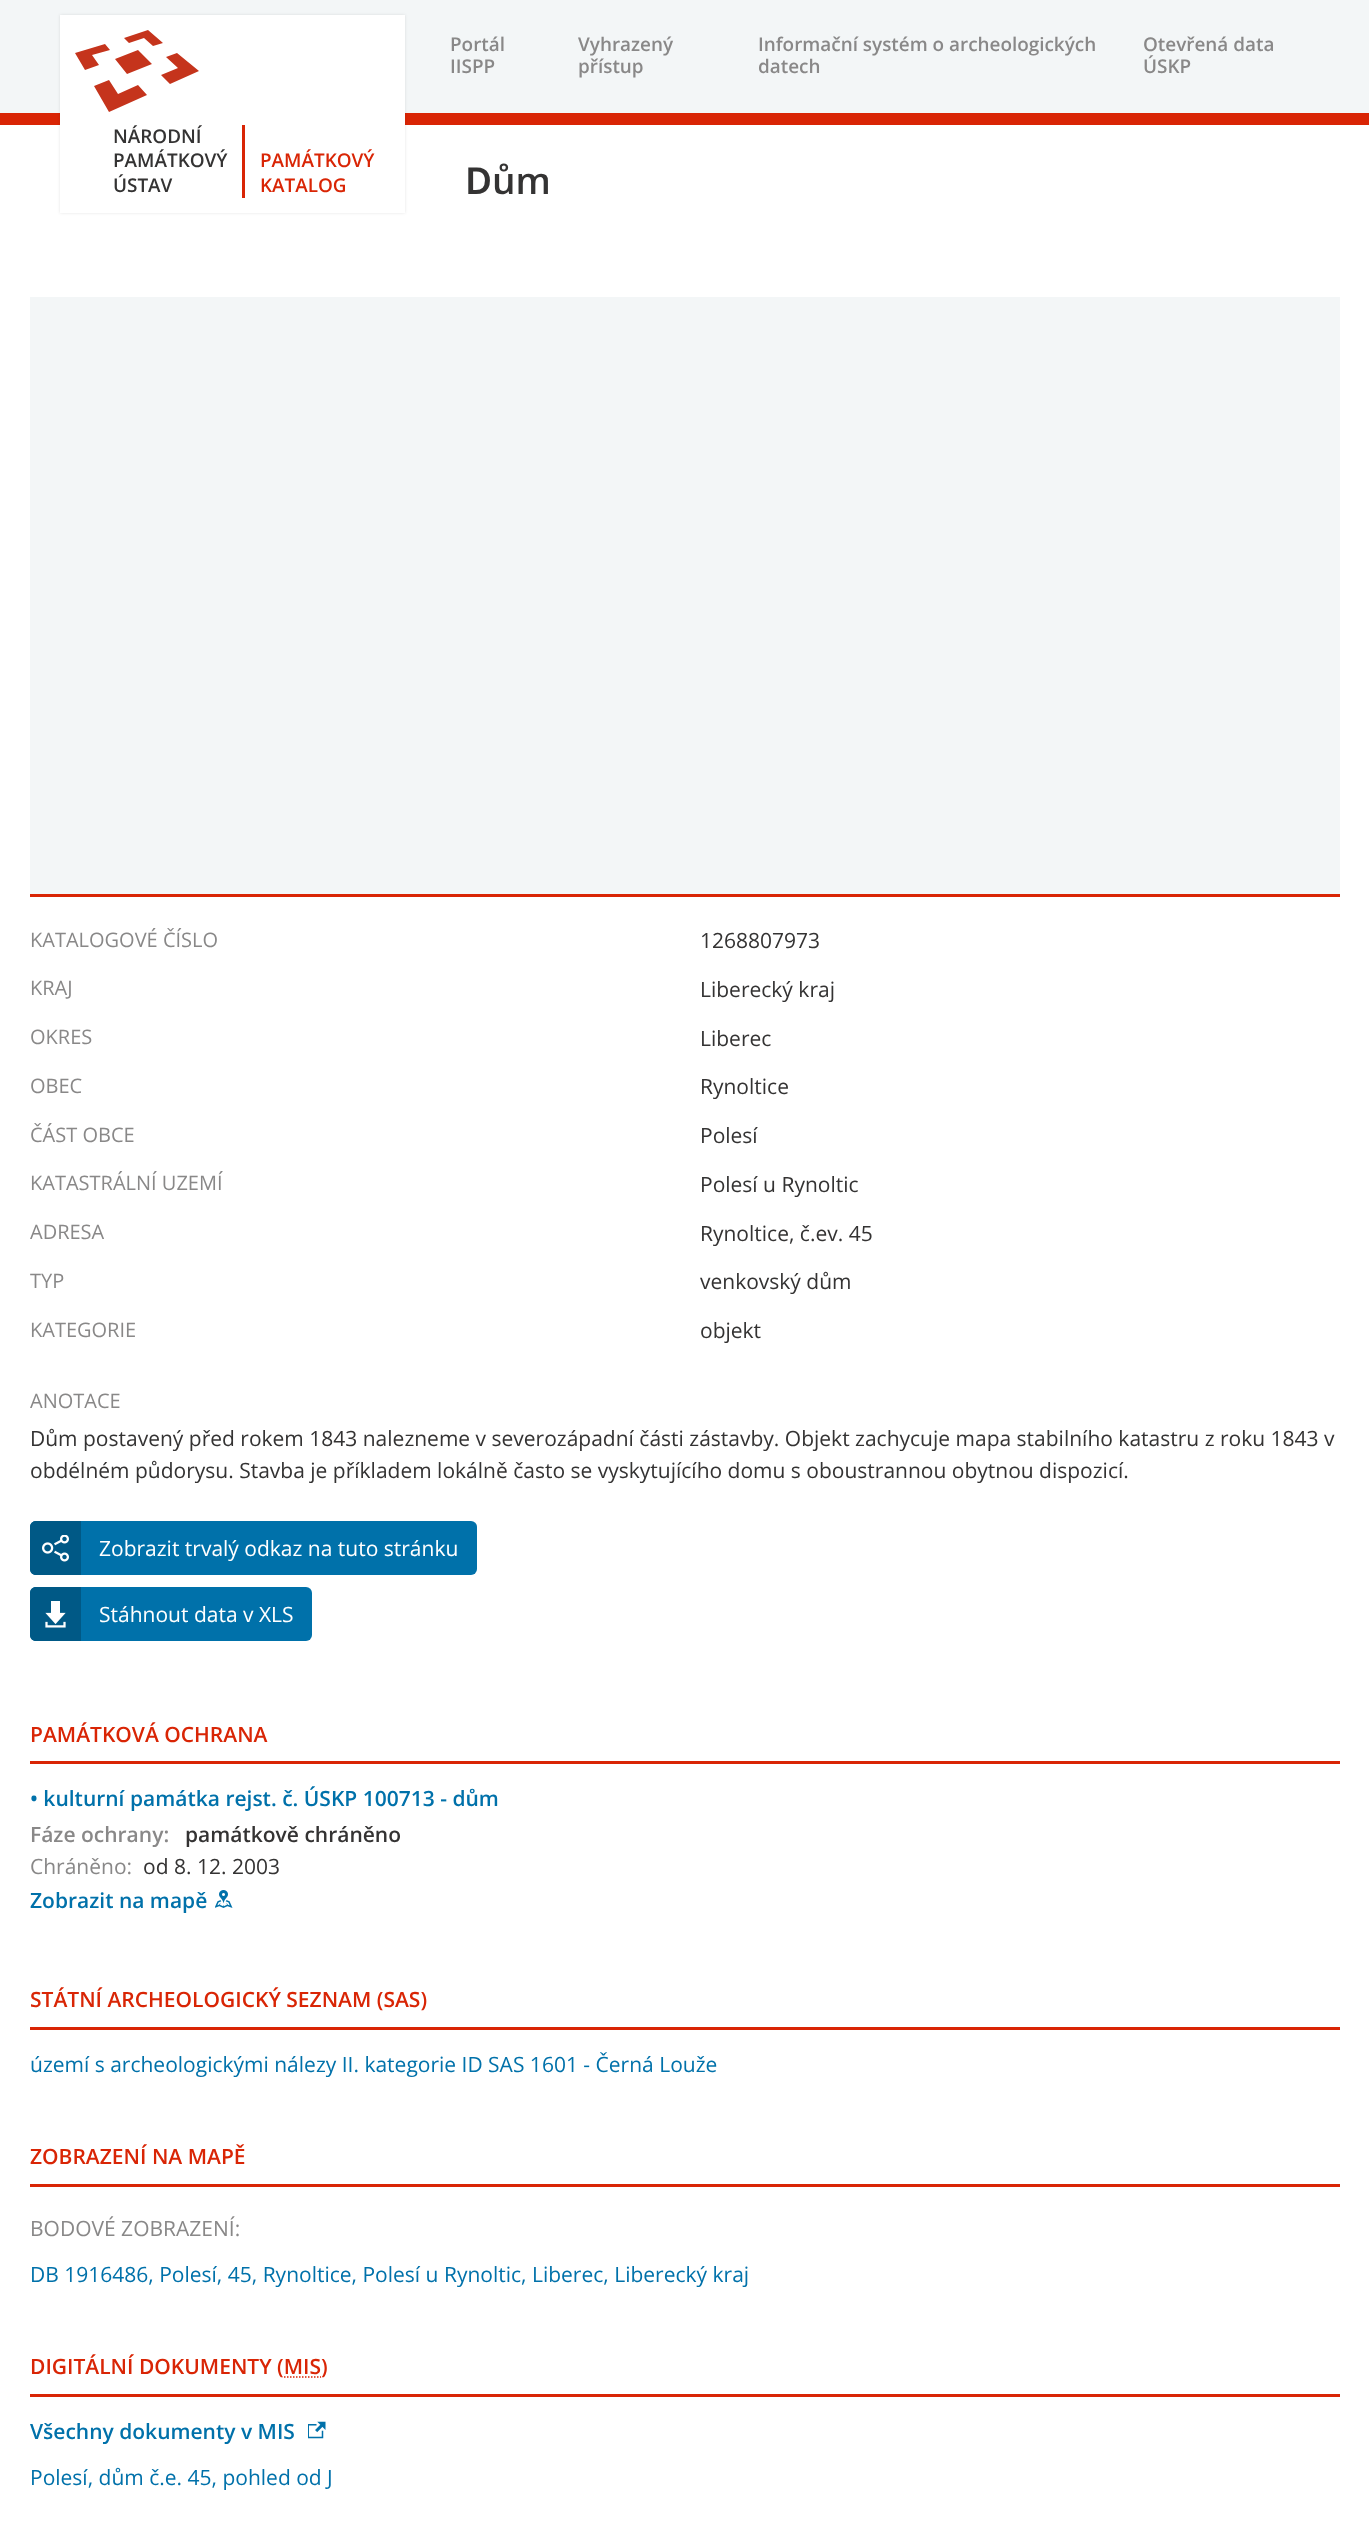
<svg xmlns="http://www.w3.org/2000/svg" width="1369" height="2537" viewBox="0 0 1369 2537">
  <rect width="100%" height="100%" fill="rgb(255,255,255)"/>
  <rect x="0" y="0" width="1369" height="113" fill="rgb(243,246,247)"/>
  <rect x="0" y="113" width="1369" height="12" fill="rgb(217,37,5)"/>
  <g font-family="Open Sans" font-size="18.9" font-weight="600" fill="rgb(137,136,136)">
    <text>
      <tspan x="450" y="51">Portál</tspan>
      <tspan x="450" y="73">IISPP</tspan>
    </text>
    <text>
      <tspan x="578" y="51">Vyhrazený</tspan>
      <tspan x="578" y="73">přístup</tspan>
    </text>
    <text>
      <tspan x="758" y="51">Informační systém o archeologických</tspan>
      <tspan x="758" y="73">datech</tspan>
    </text>
    <text>
      <tspan x="1143" y="51">Otevřená data</tspan>
      <tspan x="1143" y="73">ÚSKP</tspan>
    </text>
  </g>
  <rect x="60" y="15" width="345" height="198" fill="rgba(0,0,0,0.1)" filter="blur(1.5px)"/>
  <rect x="60" y="15" width="345" height="198" fill="rgb(255,255,255)"/>
  <path d="M92 55L99 65L85 70L75 53L105 44L110 50ZM118 94L109 80L94 86L109 112L147 95L138 85ZM177 53L166 57L178 68L161 75L170 84L199 71ZM124 38L129 43L144 38L153 46L163 43L148 30ZM152 64L138 50L115 59L127 74Z" fill="rgb(197,52,28)"/>
  <rect x="242" y="125" width="3" height="73" fill="rgb(217,37,5)"/>
  <g font-family="Open Sans" font-size="18.9" font-weight="600" fill="rgb(52,51,51)">
    <text>
      <tspan x="113" y="143">NÁRODNÍ</tspan>
      <tspan x="113" y="167">PAMÁTKOVÝ</tspan>
      <tspan x="113" y="192">ÚSTAV</tspan>
    </text>
  </g>
  <g font-family="Open Sans" font-size="18.9" font-weight="600" fill="rgb(217,37,5)">
    <text>
      <tspan x="260" y="167">PAMÁTKOVÝ</tspan>
      <tspan x="260" y="192">KATALOG</tspan>
    </text>
  </g>
  <text x="465" y="194" font-family="Noto Sans" font-size="37" font-weight="600" fill="rgb(52,51,51)">D</text>
  <text x="492" y="194" font-family="Open Sans" font-size="37" font-weight="600" fill="rgb(52,51,51)">ům</text>
  <rect x="30" y="297" width="1310" height="597" fill="rgb(243,246,247)"/>
  <rect x="30" y="894" width="1310" height="3" fill="rgb(217,37,5)"/>
  <text x="30" y="947" font-family="Open Sans" font-size="20" fill="rgb(137,136,136)">KATALOGOVÉ ČÍSLO</text>
  <text x="700" y="948" font-family="Open Sans" font-size="21" fill="rgb(52,51,51)">1268807973</text>
  <text x="30" y="995" font-family="Open Sans" font-size="20" fill="rgb(137,136,136)">KRAJ</text>
  <text x="700" y="997" font-family="Open Sans" font-size="21" fill="rgb(52,51,51)">Liberecký kraj</text>
  <text x="30" y="1044" font-family="Open Sans" font-size="20" fill="rgb(137,136,136)">OKRES</text>
  <text x="700" y="1046" font-family="Open Sans" font-size="21" fill="rgb(52,51,51)">Liberec</text>
  <text x="30" y="1093" font-family="Open Sans" font-size="20" fill="rgb(137,136,136)">OBEC</text>
  <text x="700" y="1094" font-family="Open Sans" font-size="21" fill="rgb(52,51,51)">Rynoltice</text>
  <text x="30" y="1142" font-family="Open Sans" font-size="20" fill="rgb(137,136,136)">ČÁST OBCE</text>
  <text x="700" y="1143" font-family="Open Sans" font-size="21" fill="rgb(52,51,51)">Polesí</text>
  <text x="30" y="1190" font-family="Open Sans" font-size="20" fill="rgb(137,136,136)">KATASTRÁLNÍ UZEMÍ</text>
  <text x="700" y="1192" font-family="Open Sans" font-size="21" fill="rgb(52,51,51)">Polesí u Rynoltic</text>
  <text x="30" y="1239" font-family="Open Sans" font-size="20" fill="rgb(137,136,136)">ADRESA</text>
  <text x="700" y="1241" font-family="Open Sans" font-size="21" fill="rgb(52,51,51)">Rynoltice, č.ev. 45</text>
  <text x="30" y="1288" font-family="Open Sans" font-size="20" fill="rgb(137,136,136)">TYP</text>
  <text x="700" y="1289" font-family="Open Sans" font-size="21" fill="rgb(52,51,51)">venkovský dům</text>
  <text x="30" y="1337" font-family="Open Sans" font-size="20" fill="rgb(137,136,136)">KATEGORIE</text>
  <text x="700" y="1338" font-family="Open Sans" font-size="21" fill="rgb(52,51,51)">objekt</text>
  <text x="30" y="1408" font-family="Open Sans" font-size="20" fill="rgb(137,136,136)">ANOTACE</text>
  <g font-family="Open Sans" font-size="21" fill="rgb(52,51,51)">
    <text>
      <tspan x="30" y="1446">Dům postavený před rokem 1843 nalezneme v severozápadní části zástavby. Objekt zachycuje mapa stabilního katastru z roku 1843 v</tspan>
      <tspan x="30" y="1478">obdélném půdorysu. Stavba je příkladem lokálně často se vyskytujícího domu s oboustrannou obytnou dispozicí.</tspan>
    </text>
  </g>
  <rect x="30" y="1521" width="447" height="54" rx="6" fill="rgb(0,113,170)"/>
  <path d="M36 1521H81V1575H36C32.5 1575 30 1572.5 30 1569V1527C30 1523.5 32.5 1521 36 1521Z" fill="rgb(0,89,134)"/>
  <image x="42" y="1535" width="27" height="27" href="pic1.png"/>
  <text x="99" y="1556" font-family="Open Sans" font-size="21" fill="rgb(255,255,255)">Zobrazit trvalý odkaz na tuto stránku</text>
  <rect x="30" y="1587" width="282" height="54" rx="6" fill="rgb(0,113,170)"/>
  <path d="M36 1587H81V1641H36C32.5 1641 30 1638.5 30 1635V1593C30 1589.5 32.5 1587 36 1587Z" fill="rgb(0,89,134)"/>
  <image x="45" y="1601" width="21" height="27" href="pic2.png"/>
  <text x="99" y="1622" font-family="Open Sans" font-size="21" fill="rgb(255,255,255)">Stáhnout data v XLS</text>
  <rect x="30" y="1761" width="1310" height="3" fill="rgb(217,37,5)"/>
  <text x="30" y="1742" font-family="Open Sans" font-size="21" font-weight="600" fill="rgb(217,37,5)">PAMÁTKOVÁ OCHRANA</text>
  <text x="30" y="1806" font-family="Open Sans" font-size="21" font-weight="600" fill="rgb(0,113,170)">• kulturní památka rejst. č. ÚSKP 100713 - dům</text>
  <text x="30" y="1842" font-family="Open Sans" font-size="21" font-weight="600" fill="rgb(137,136,136)">Fáze ochrany:</text>
  <text x="185" y="1842" font-family="Open Sans" font-size="21" font-weight="600" fill="rgb(52,51,51)">památkově chráněno</text>
  <text x="30" y="1874" font-family="Open Sans" font-size="21" fill="rgb(137,136,136)">Chráněno:</text>
  <text x="143" y="1874" font-family="Open Sans" font-size="21" fill="rgb(52,51,51)">od 8. 12. 2003</text>
  <text x="30" y="1908" font-family="Open Sans" font-size="21" font-weight="600" fill="rgb(0,113,170)">Zobrazit na mapě</text>
  <image x="215" y="1890" width="18" height="18" href="pic3.png"/>
  <rect x="30" y="2027" width="1310" height="3" fill="rgb(217,37,5)"/>
  <text x="30" y="2007" font-family="Open Sans" font-size="21" font-weight="600" fill="rgb(217,37,5)">STÁTNÍ ARCHEOLOGICKÝ SEZNAM (SAS)</text>
  <text x="30" y="2072" font-family="Open Sans" font-size="21" fill="rgb(0,113,170)">území s archeologickými nálezy II. kategorie ID SAS 1601 - Černá Louže</text>
  <rect x="30" y="2184" width="1310" height="3" fill="rgb(217,37,5)"/>
  <text x="30" y="2164" font-family="Open Sans" font-size="21" font-weight="600" fill="rgb(217,37,5)">ZOBRAZENÍ NA MAPĚ</text>
  <text x="30" y="2236" font-family="Open Sans" font-size="21" fill="rgb(137,136,136)">BODOVÉ ZOBRAZENÍ:</text>
  <text x="30" y="2282" font-family="Open Sans" font-size="21" fill="rgb(0,113,170)">DB 1916486, Polesí, 45, Rynoltice, Polesí u Rynoltic, Liberec, Liberecký kraj</text>
  <rect x="30" y="2394" width="1310" height="3" fill="rgb(217,37,5)"/>
  <text x="30" y="2374" font-family="Open Sans" font-size="21" font-weight="600" fill="rgb(217,37,5)">DIGITÁLNÍ DOKUMENTY (MIS)</text>
  <path d="M284 2377H321" fill="none" stroke="rgb(217,37,5)" stroke-width="1.5" stroke-dasharray="1.5 1.5"/>
  <text x="30" y="2439" font-family="Open Sans" font-size="21" font-weight="600" fill="rgb(0,113,170)">Všechny dokumenty v MIS</text>
  <image x="308" y="2421" width="18" height="18" href="pic4.png"/>
  <text x="30" y="2485" font-family="Open Sans" font-size="21" fill="rgb(0,113,170)">Polesí, dům č.e. 45, pohled od J</text>
</svg>
